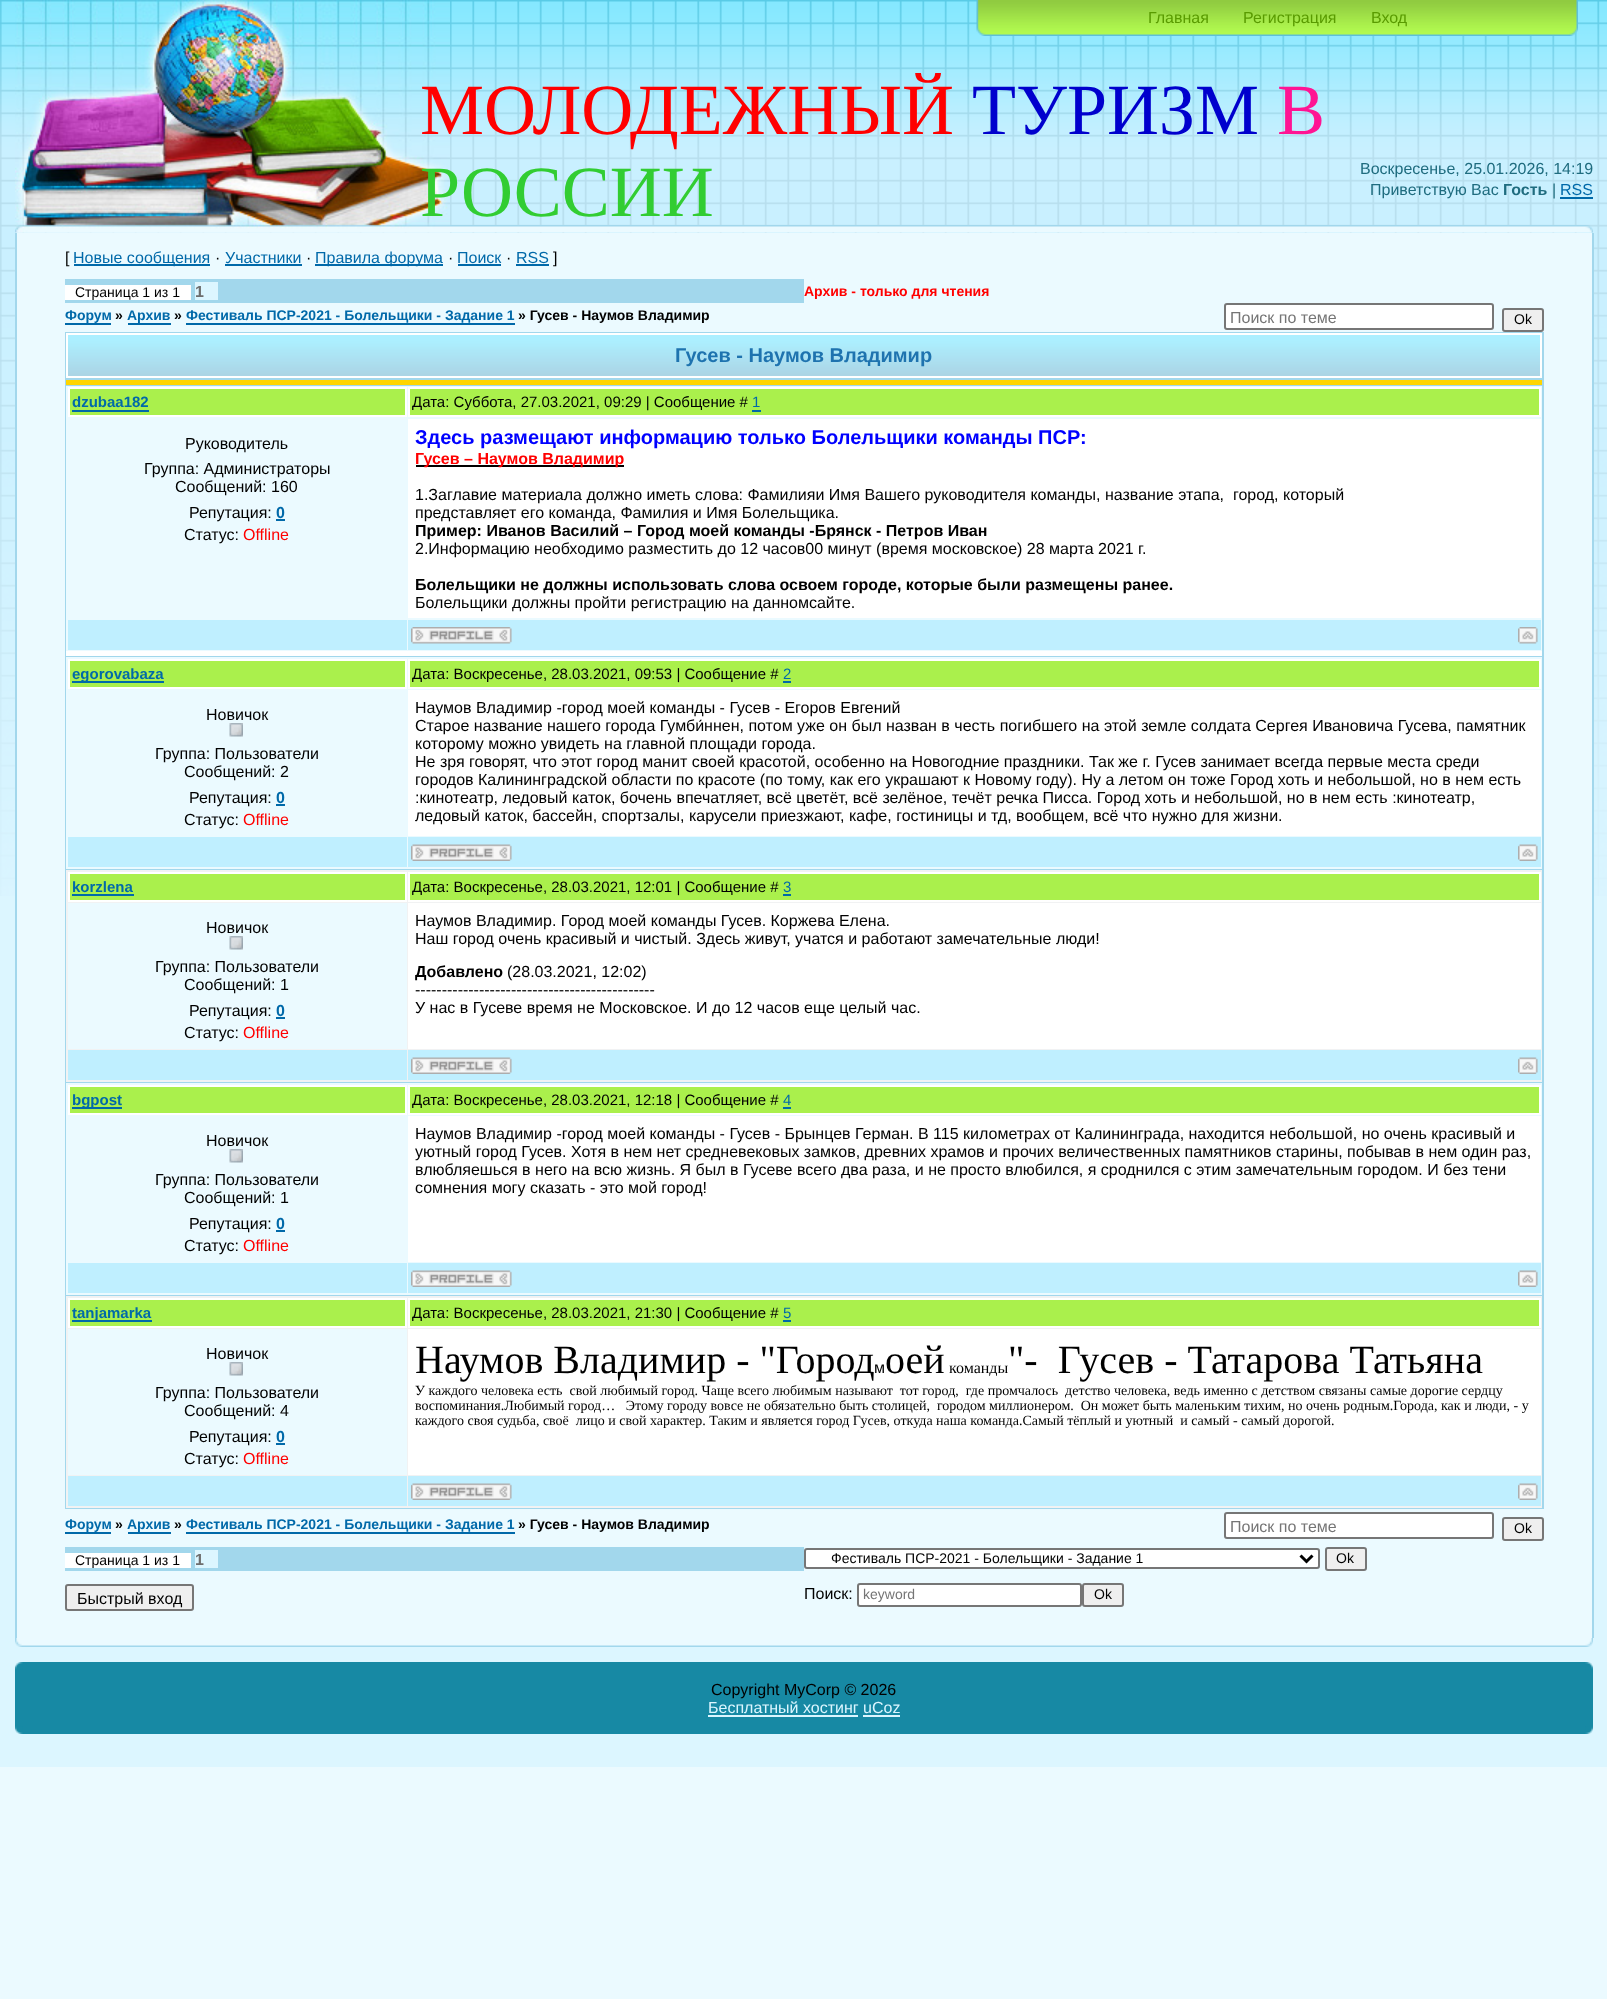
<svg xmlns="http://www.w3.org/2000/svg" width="1607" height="1999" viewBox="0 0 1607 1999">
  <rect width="100%" height="100%" fill="rgb(235,250,255)"/>
  <rect x="0" y="896" width="1607" height="871" fill="rgb(220,246,255)"/>
  <image x="0" y="0" width="1607" height="896" href="pic1.png"/>
  <image x="15" y="225" width="1578" height="8" href="pic2.png"/>
  <image x="15" y="0" width="435" height="233" href="pic3.png"/>
  <image x="976" y="0" width="602" height="36" href="pic4.png"/>
  <g font-family="Liberation Sans" font-size="16" fill="rgb(89,155,0)">
    <text x="1148" y="23">Главная</text>
    <text x="1243" y="23">Регистрация</text>
    <text x="1371" y="23">Вход</text>
  </g>
  <text x="420" y="134" font-family="Liberation Serif" font-size="72" fill="rgb(255,0,0)">МОЛОДЕЖНЫЙ</text>
  <text x="972" y="134" font-family="Liberation Serif" font-size="72" fill="rgb(0,0,205)">ТУРИЗМ</text>
  <text x="1277" y="134" font-family="Liberation Serif" font-size="72" fill="rgb(255,20,147)">В</text>
  <text x="420" y="216" font-family="Liberation Serif" font-size="72" fill="rgb(50,205,50)">РОССИИ</text>
  <g font-family="Liberation Sans" font-size="16" fill="rgb(31,108,127)">
    <text x="1360" y="174">Воскресенье, 25.01.2026, 14:19</text>
    <text x="1370" y="195">Приветствую Вас</text>
  </g>
  <text x="1503" y="195" font-family="Liberation Sans" font-size="16" font-weight="bold" fill="rgb(31,108,127)">Гость</text>
  <text x="1552" y="195" font-family="Liberation Sans" font-size="16" fill="rgb(31,108,127)">|</text>
  <text x="1560" y="195" font-family="Liberation Sans" font-size="16" fill="rgb(0,105,169)">RSS</text>
  <rect x="1560" y="197" width="33" height="2" fill="rgb(0,105,169)"/>
  <rect x="17" y="233" width="1575" height="1405" fill="rgb(235,250,255)"/>
  <rect x="15" y="233" width="2" height="1405" fill="rgb(162,215,236)"/>
  <rect x="1592" y="233" width="2" height="1405" fill="rgb(162,215,236)"/>
  <text x="65" y="263" font-family="Liberation Sans" font-size="16" fill="rgb(0,0,0)">[</text>
  <rect x="74" y="264" width="136" height="2" fill="rgb(0,105,169)"/>
  <text x="73" y="263" font-family="Liberation Sans" font-size="16" fill="rgb(0,105,169)">Новые сообщения</text>
  <text x="215" y="263" font-family="Liberation Sans" font-size="16" fill="rgb(0,0,0)">·</text>
  <text x="225" y="263" font-family="Liberation Sans" font-size="16" fill="rgb(0,105,169)">Участники</text>
  <rect x="225" y="264" width="77" height="2" fill="rgb(0,105,169)"/>
  <text x="306" y="263" font-family="Liberation Sans" font-size="16" fill="rgb(0,0,0)">·</text>
  <rect x="315" y="264" width="128" height="2" fill="rgb(0,105,169)"/>
  <text x="315" y="263" font-family="Liberation Sans" font-size="16" fill="rgb(0,105,169)">Правила форума</text>
  <text x="448" y="263" font-family="Liberation Sans" font-size="16" fill="rgb(0,0,0)">·</text>
  <text x="457" y="263" font-family="Liberation Sans" font-size="16" fill="rgb(0,105,169)">Поиск</text>
  <rect x="458" y="264" width="43" height="2" fill="rgb(0,105,169)"/>
  <text x="506" y="263" font-family="Liberation Sans" font-size="16" fill="rgb(0,0,0)">·</text>
  <text x="516" y="263" font-family="Liberation Sans" font-size="16" fill="rgb(0,105,169)">RSS</text>
  <rect x="516" y="264" width="33" height="2" fill="rgb(0,105,169)"/>
  <text x="553" y="263" font-family="Liberation Sans" font-size="16" fill="rgb(0,0,0)">]</text>
  <rect x="65" y="279" width="739" height="24" fill="rgb(162,215,236)"/>
  <rect x="65" y="285" width="126" height="15" fill="rgb(255,255,255)"/>
  <text x="75" y="297" font-family="Liberation Sans" font-size="14" fill="rgb(0,0,0)">Страница 1 из 1</text>
  <rect x="195" y="282" width="23" height="18" fill="rgb(220,246,255)"/>
  <text x="195" y="297" font-family="Liberation Sans" font-size="16" font-weight="bold" fill="rgb(110,110,110)">1</text>
  <text x="804" y="296" font-family="Liberation Sans" font-size="14" font-weight="bold" fill="rgb(255,0,0)">Архив - только для чтения</text>
  <text x="65" y="320" font-family="Liberation Sans" font-size="14" font-weight="bold" fill="rgb(0,105,169)">Форум</text>
  <rect x="65" y="323" width="46" height="2" fill="rgb(0,105,169)"/>
  <text x="115" y="320" font-family="Liberation Sans" font-size="14" font-weight="bold" fill="rgb(0,0,0)">»</text>
  <text x="127" y="320" font-family="Liberation Sans" font-size="14" font-weight="bold" fill="rgb(0,105,169)">Архив</text>
  <rect x="128" y="323" width="43" height="2" fill="rgb(0,105,169)"/>
  <text x="174" y="320" font-family="Liberation Sans" font-size="14" font-weight="bold" fill="rgb(0,0,0)">»</text>
  <text x="186" y="320" font-family="Liberation Sans" font-size="14" font-weight="bold" fill="rgb(0,105,169)">Фестиваль ПСР-2021 - Болельщики - Задание 1</text>
  <rect x="186" y="323" width="329" height="2" fill="rgb(0,105,169)"/>
  <text x="518" y="320" font-family="Liberation Sans" font-size="14" font-weight="bold" fill="rgb(0,0,0)">» Гусев - Наумов Владимир</text>
  <rect x="1225" y="304" width="268" height="25" rx="2" fill="rgb(255,255,255)" stroke="rgb(118,118,118)" stroke-width="2"/>
  <text x="1230" y="323" font-family="Liberation Sans" font-size="16" fill="rgb(117,117,117)">Поиск по теме</text>
  <rect x="1503" y="309" width="40" height="22" rx="2" fill="rgb(239,239,239)" stroke="rgb(118,118,118)" stroke-width="2"/>
  <text x="1514" y="324" font-family="Liberation Sans" font-size="14" fill="rgb(0,0,0)">Ok</text>
  <rect x="65" y="332" width="1479" height="1177" fill="rgb(162,215,236)"/>
  <image x="68" y="335" width="1472" height="41" href="pic5.png"/>
  <rect x="67" y="334" width="1474" height="43" fill="none" stroke="rgb(255,255,255)" stroke-width="2"/>
  <text x="675" y="362" font-family="Liberation Sans" font-size="20" font-weight="bold" fill="rgb(30,115,175)">Гусев - Наумов Владимир</text>
  <rect x="66" y="380" width="1476" height="5" fill="rgb(255,213,0)"/>
  <rect x="66" y="386" width="1476" height="265" fill="rgb(235,250,255)"/>
  <rect x="66" y="651" width="1476" height="5" fill="rgb(255,255,255)"/>
  <rect x="69" y="388" width="337" height="28" fill="rgb(170,240,76)" stroke="rgb(255,255,255)" stroke-width="2"/>
  <text x="72" y="407" font-family="Liberation Sans" font-size="15" font-weight="bold" fill="rgb(0,105,169)">dzubaa182</text>
  <rect x="72" y="410" width="77" height="2" fill="rgb(0,105,169)"/>
  <rect x="409" y="388" width="1131" height="28" fill="rgb(170,240,76)" stroke="rgb(255,255,255)" stroke-width="2"/>
  <text x="412" y="407" font-family="Liberation Sans" font-size="15" fill="rgb(0,0,0)">Дата: Суббота, 27.03.2021, 09:29 | Сообщение #</text>
  <text x="752" y="407" font-family="Liberation Sans" font-size="15" fill="rgb(0,105,169)">1</text>
  <rect x="752" y="410" width="9" height="2" fill="rgb(0,105,169)"/>
  <g font-family="Liberation Sans" font-size="16" fill="rgb(0,0,0)">
    <text x="185" y="449">Руководитель</text>
    <text x="144" y="474">Группа: Администраторы</text>
    <text x="175" y="492">Сообщений: 160</text>
    <text x="189" y="518">Репутация:</text>
  </g>
  <text x="276" y="518" font-family="Liberation Sans" font-size="16" font-weight="bold" fill="rgb(0,105,169)">0</text>
  <rect x="276" y="519" width="9" height="2" fill="rgb(0,105,169)"/>
  <text x="184" y="540" font-family="Liberation Sans" font-size="16" fill="rgb(0,0,0)">Статус:</text>
  <text x="243" y="540" font-family="Liberation Sans" font-size="16" fill="rgb(255,0,0)">Offline</text>
  <rect x="408" y="419" width="1133" height="199" fill="rgb(255,255,255)"/>
  <text x="415" y="444" font-family="Liberation Sans" font-size="20" font-weight="bold" fill="rgb(0,0,255)">Здесь размещают информацию только Болельщики команды ПСР:</text>
  <rect x="416" y="465" width="208" height="2" fill="rgb(0,0,0)"/>
  <text x="415" y="464" font-family="Liberation Sans" font-size="16" font-weight="bold" fill="rgb(255,0,0)">Гусев – Наумов Владимир</text>
  <g font-family="Liberation Sans" font-size="16" fill="rgb(0,0,0)">
    <text xml:space="preserve"><tspan x="415" y="500">1.Заглавие материала должно иметь слова: Фамилияи Имя Вашего руководителя команды, название этапа,  город, который</tspan><tspan x="415" y="518">представляет его команда, Фамилия и Имя Болельщика.</tspan></text>
  </g>
  <text x="415" y="536" font-family="Liberation Sans" font-size="16" font-weight="bold" fill="rgb(0,0,0)">Пример: Иванов Василий – Город моей команды -Брянск - Петров Иван</text>
  <text x="415" y="554" font-family="Liberation Sans" font-size="16" fill="rgb(0,0,0)">2.Информацию необходимо разместить до 12 часов00 минут (время московское) 28 марта 2021 г.</text>
  <text x="415" y="590" font-family="Liberation Sans" font-size="16" font-weight="bold" fill="rgb(0,0,0)">Болельщики не должны использовать слова освоем городе, которые были размещены ранее.</text>
  <text x="415" y="608" font-family="Liberation Sans" font-size="16" fill="rgb(0,0,0)">Болельщики должны пройти регистрацию на данномсайте.</text>
  <rect x="68" y="620" width="339" height="30" fill="rgb(191,239,255)"/>
  <rect x="408" y="620" width="1133" height="30" fill="rgb(191,239,255)"/>
  <image x="411" y="627" width="101" height="17" href="pic6.png"/>
  <image x="1518" y="627" width="20" height="17" href="pic7.png"/>
  <rect x="66" y="657" width="1476" height="212" fill="rgb(235,250,255)"/>
  <rect x="69" y="660" width="337" height="28" fill="rgb(170,240,76)" stroke="rgb(255,255,255)" stroke-width="2"/>
  <rect x="72" y="681" width="92" height="2" fill="rgb(0,105,169)"/>
  <text x="72" y="679" font-family="Liberation Sans" font-size="15" font-weight="bold" fill="rgb(0,105,169)">egorovabaza</text>
  <rect x="409" y="660" width="1131" height="28" fill="rgb(170,240,76)" stroke="rgb(255,255,255)" stroke-width="2"/>
  <text x="412" y="679" font-family="Liberation Sans" font-size="15" fill="rgb(0,0,0)">Дата: Воскресенье, 28.03.2021, 09:53 | Сообщение #</text>
  <text x="783" y="679" font-family="Liberation Sans" font-size="15" fill="rgb(0,105,169)">2</text>
  <rect x="783" y="681" width="8" height="2" fill="rgb(0,105,169)"/>
  <text x="206" y="720" font-family="Liberation Sans" font-size="16" fill="rgb(0,0,0)">Новичок</text>
  <image x="229" y="723" width="14" height="14" href="pic8.png"/>
  <g font-family="Liberation Sans" font-size="16" fill="rgb(0,0,0)">
    <text x="155" y="759">Группа: Пользователи</text>
    <text x="184" y="777">Сообщений: 2</text>
    <text x="189" y="803">Репутация:</text>
  </g>
  <text x="276" y="803" font-family="Liberation Sans" font-size="16" font-weight="bold" fill="rgb(0,105,169)">0</text>
  <rect x="276" y="804" width="9" height="2" fill="rgb(0,105,169)"/>
  <text x="184" y="825" font-family="Liberation Sans" font-size="16" fill="rgb(0,0,0)">Статус:</text>
  <text x="243" y="825" font-family="Liberation Sans" font-size="16" fill="rgb(255,0,0)">Offline</text>
  <rect x="408" y="690" width="1133" height="146" fill="rgb(255,255,255)"/>
  <g font-family="Liberation Sans" font-size="16" fill="rgb(0,0,0)">
    <text>
      <tspan x="415" y="713">Наумов Владимир -город моей команды - Гусев - Егоров Евгений</tspan>
      <tspan x="415" y="731">Старое название нашего города Гумби́ннен, потом уже он был назван в честь погибшего на этой земле солдата Сергея Ивановича Гусева, памятник</tspan>
      <tspan x="415" y="749">которому можно увидеть на главной площади города.</tspan>
      <tspan x="415" y="767">Не зря говорят, что этот город манит своей красотой, особенно на Новогодние праздники. Так же г. Гусев занимает всегда первые места среди</tspan>
      <tspan x="415" y="785">городов Калининградской области по красоте (по тому, как его украшают к Новому году). Ну а летом он тоже Город хоть и небольшой, но в нем есть</tspan>
      <tspan x="415" y="803">:кинотеатр, ледовый каток, бочень впечатляет, всё цветёт, всё зелёное, течёт речка Писса. Город хоть и небольшой, но в нем есть :кинотеатр,</tspan>
      <tspan x="415" y="821">ледовый каток, бассейн, спортзалы, карусели приезжают, кафе, гостиницы и тд, вообщем, всё что нужно для жизни.</tspan>
    </text>
  </g>
  <rect x="68" y="837" width="339" height="30" fill="rgb(191,239,255)"/>
  <rect x="408" y="837" width="1133" height="30" fill="rgb(191,239,255)"/>
  <image x="411" y="844" width="101" height="17" href="pic9.png"/>
  <image x="1518" y="844" width="20" height="17" href="pic10.png"/>
  <rect x="66" y="870" width="1476" height="212" fill="rgb(241,242,243)"/>
  <rect x="69" y="873" width="337" height="28" fill="rgb(170,240,76)" stroke="rgb(255,255,255)" stroke-width="2"/>
  <text x="72" y="892" font-family="Liberation Sans" font-size="15" font-weight="bold" fill="rgb(0,105,169)">korzlena</text>
  <rect x="72" y="894" width="62" height="2" fill="rgb(0,105,169)"/>
  <rect x="409" y="873" width="1131" height="28" fill="rgb(170,240,76)" stroke="rgb(255,255,255)" stroke-width="2"/>
  <text x="412" y="892" font-family="Liberation Sans" font-size="15" fill="rgb(0,0,0)">Дата: Воскресенье, 28.03.2021, 12:01 | Сообщение #</text>
  <text x="783" y="892" font-family="Liberation Sans" font-size="15" fill="rgb(0,105,169)">3</text>
  <rect x="783" y="894" width="8" height="2" fill="rgb(0,105,169)"/>
  <rect x="68" y="903" width="339" height="146" fill="rgb(235,250,255)"/>
  <text x="206" y="933" font-family="Liberation Sans" font-size="16" fill="rgb(0,0,0)">Новичок</text>
  <image x="229" y="936" width="14" height="14" href="pic8.png"/>
  <g font-family="Liberation Sans" font-size="16" fill="rgb(0,0,0)">
    <text x="155" y="972">Группа: Пользователи</text>
    <text x="184" y="990">Сообщений: 1</text>
    <text x="189" y="1016">Репутация:</text>
  </g>
  <text x="276" y="1016" font-family="Liberation Sans" font-size="16" font-weight="bold" fill="rgb(0,105,169)">0</text>
  <rect x="276" y="1017" width="9" height="2" fill="rgb(0,105,169)"/>
  <text x="184" y="1038" font-family="Liberation Sans" font-size="16" fill="rgb(0,0,0)">Статус:</text>
  <text x="243" y="1038" font-family="Liberation Sans" font-size="16" fill="rgb(255,0,0)">Offline</text>
  <rect x="408" y="903" width="1133" height="146" fill="rgb(255,255,255)"/>
  <g font-family="Liberation Sans" font-size="16" fill="rgb(0,0,0)">
    <text>
      <tspan x="415" y="926">Наумов Владимир. Город моей команды Гусев. Коржева Елена.</tspan>
      <tspan x="415" y="944">Наш город очень красивый и чистый. Здесь живут, учатся и работают замечательные люди!</tspan>
    </text>
  </g>
  <text x="415" y="977" font-family="Liberation Sans" font-size="16" font-weight="bold" fill="rgb(0,0,0)">Добавлено</text>
  <g font-family="Liberation Sans" font-size="16" fill="rgb(0,0,0)">
    <text x="507" y="977">(28.03.2021, 12:02)</text>
    <text>
      <tspan x="415" y="995">---------------------------------------------</tspan>
      <tspan x="415" y="1013">У нас в Гусеве время не Московское. И до 12 часов еще целый час.</tspan>
    </text>
  </g>
  <rect x="68" y="1050" width="339" height="30" fill="rgb(191,239,255)"/>
  <rect x="408" y="1050" width="1133" height="30" fill="rgb(191,239,255)"/>
  <image x="411" y="1057" width="101" height="17" href="pic9.png"/>
  <image x="1518" y="1057" width="20" height="17" href="pic10.png"/>
  <rect x="66" y="1083" width="1476" height="212" fill="rgb(235,250,255)"/>
  <rect x="69" y="1086" width="337" height="28" fill="rgb(170,240,76)" stroke="rgb(255,255,255)" stroke-width="2"/>
  <rect x="72" y="1107" width="50" height="2" fill="rgb(0,105,169)"/>
  <text x="72" y="1105" font-family="Liberation Sans" font-size="15" font-weight="bold" fill="rgb(0,105,169)">bgpost</text>
  <rect x="409" y="1086" width="1131" height="28" fill="rgb(170,240,76)" stroke="rgb(255,255,255)" stroke-width="2"/>
  <text x="412" y="1105" font-family="Liberation Sans" font-size="15" fill="rgb(0,0,0)">Дата: Воскресенье, 28.03.2021, 12:18 | Сообщение #</text>
  <text x="783" y="1105" font-family="Liberation Sans" font-size="15" fill="rgb(0,105,169)">4</text>
  <rect x="783" y="1107" width="8" height="2" fill="rgb(0,105,169)"/>
  <text x="206" y="1146" font-family="Liberation Sans" font-size="16" fill="rgb(0,0,0)">Новичок</text>
  <image x="229" y="1149" width="14" height="14" href="pic8.png"/>
  <g font-family="Liberation Sans" font-size="16" fill="rgb(0,0,0)">
    <text x="155" y="1185">Группа: Пользователи</text>
    <text x="184" y="1203">Сообщений: 1</text>
    <text x="189" y="1229">Репутация:</text>
  </g>
  <text x="276" y="1229" font-family="Liberation Sans" font-size="16" font-weight="bold" fill="rgb(0,105,169)">0</text>
  <rect x="276" y="1230" width="9" height="2" fill="rgb(0,105,169)"/>
  <text x="184" y="1251" font-family="Liberation Sans" font-size="16" fill="rgb(0,0,0)">Статус:</text>
  <text x="243" y="1251" font-family="Liberation Sans" font-size="16" fill="rgb(255,0,0)">Offline</text>
  <rect x="408" y="1116" width="1133" height="146" fill="rgb(255,255,255)"/>
  <g font-family="Liberation Sans" font-size="16" fill="rgb(0,0,0)">
    <text>
      <tspan x="415" y="1139">Наумов Владимир -город моей команды - Гусев - Брынцев Герман. В 115 километрах от Калининграда, находится небольшой, но очень красивый и</tspan>
      <tspan x="415" y="1157">уютный город Гусев. Хотя в нем нет средневековых замков, древних храмов и прочих величественных памятников старины, побывав в нем один раз,</tspan>
      <tspan x="415" y="1175">влюбляешься в него на всю жизнь. Я был в Гусеве всего два раза, и не просто влюбился, я сроднился с этим замечательным городом. И без тени</tspan>
      <tspan x="415" y="1193">сомнения могу сказать - это мой город!</tspan>
    </text>
  </g>
  <rect x="68" y="1263" width="339" height="30" fill="rgb(191,239,255)"/>
  <rect x="408" y="1263" width="1133" height="30" fill="rgb(191,239,255)"/>
  <image x="411" y="1270" width="101" height="17" href="pic9.png"/>
  <image x="1518" y="1270" width="20" height="17" href="pic10.png"/>
  <rect x="66" y="1296" width="1476" height="212" fill="rgb(241,242,243)"/>
  <rect x="69" y="1299" width="337" height="28" fill="rgb(170,240,76)" stroke="rgb(255,255,255)" stroke-width="2"/>
  <rect x="72" y="1320" width="80" height="2" fill="rgb(0,105,169)"/>
  <text x="72" y="1318" font-family="Liberation Sans" font-size="15" font-weight="bold" fill="rgb(0,105,169)">tanjamarka</text>
  <rect x="409" y="1299" width="1131" height="28" fill="rgb(170,240,76)" stroke="rgb(255,255,255)" stroke-width="2"/>
  <text x="412" y="1318" font-family="Liberation Sans" font-size="15" fill="rgb(0,0,0)">Дата: Воскресенье, 28.03.2021, 21:30 | Сообщение #</text>
  <text x="783" y="1318" font-family="Liberation Sans" font-size="15" fill="rgb(0,105,169)">5</text>
  <rect x="783" y="1320" width="8" height="2" fill="rgb(0,105,169)"/>
  <rect x="68" y="1329" width="339" height="146" fill="rgb(235,250,255)"/>
  <text x="206" y="1359" font-family="Liberation Sans" font-size="16" fill="rgb(0,0,0)">Новичок</text>
  <image x="229" y="1362" width="14" height="14" href="pic8.png"/>
  <g font-family="Liberation Sans" font-size="16" fill="rgb(0,0,0)">
    <text x="155" y="1398">Группа: Пользователи</text>
    <text x="184" y="1416">Сообщений: 4</text>
    <text x="189" y="1442">Репутация:</text>
  </g>
  <text x="276" y="1442" font-family="Liberation Sans" font-size="16" font-weight="bold" fill="rgb(0,105,169)">0</text>
  <rect x="276" y="1443" width="9" height="2" fill="rgb(0,105,169)"/>
  <text x="184" y="1464" font-family="Liberation Sans" font-size="16" fill="rgb(0,0,0)">Статус:</text>
  <text x="243" y="1464" font-family="Liberation Sans" font-size="16" fill="rgb(255,0,0)">Offline</text>
  <rect x="408" y="1329" width="1133" height="146" fill="rgb(255,255,255)"/>
  <text x="415" y="1373" font-family="Liberation Serif" font-size="40" fill="rgb(0,0,0)">Наумов Владимир - "Город</text>
  <text x="874" y="1373" font-family="Liberation Sans" font-size="16" fill="rgb(0,0,0)">м</text>
  <text x="885" y="1373" font-family="Liberation Serif" font-size="40" fill="rgb(0,0,0)">оей</text>
  <text x="949" y="1373" font-family="Liberation Serif" font-size="16" fill="rgb(0,0,0)">команды</text>
  <text x="1008" y="1373" font-family="Liberation Serif" font-size="40" fill="rgb(0,0,0)" xml:space="preserve">"-  Гусев - Татарова Татьяна</text>
  <g font-family="Liberation Serif" font-size="14" fill="rgb(0,0,0)">
    <text xml:space="preserve"><tspan x="415" y="1395">У каждого человека есть  свой любимый город. Чаще всего любимым называют  тот город,  где промчалось  детство человека, ведь именно с детством связаны самые дорогие сердцу</tspan><tspan x="415" y="1410">воспоминания.Любимый город…   Этому городу вовсе не обязательно быть столицей,  городом миллионером.  Он может быть маленьким тихим, но очень родным.Города, как и люди, - у</tspan><tspan x="415" y="1425">каждого своя судьба, своё  лицо и свой характер. Таким и является город Гусев, откуда наша команда.Самый тёплый и уютный  и самый - самый дорогой.</tspan></text>
  </g>
  <rect x="68" y="1476" width="339" height="30" fill="rgb(191,239,255)"/>
  <rect x="408" y="1476" width="1133" height="30" fill="rgb(191,239,255)"/>
  <image x="411" y="1483" width="101" height="17" href="pic9.png"/>
  <image x="1518" y="1483" width="20" height="17" href="pic10.png"/>
  <text x="65" y="1529" font-family="Liberation Sans" font-size="14" font-weight="bold" fill="rgb(0,105,169)">Форум</text>
  <rect x="65" y="1532" width="46" height="2" fill="rgb(0,105,169)"/>
  <text x="115" y="1529" font-family="Liberation Sans" font-size="14" font-weight="bold" fill="rgb(0,0,0)">»</text>
  <text x="127" y="1529" font-family="Liberation Sans" font-size="14" font-weight="bold" fill="rgb(0,105,169)">Архив</text>
  <rect x="128" y="1532" width="43" height="2" fill="rgb(0,105,169)"/>
  <text x="174" y="1529" font-family="Liberation Sans" font-size="14" font-weight="bold" fill="rgb(0,0,0)">»</text>
  <text x="186" y="1529" font-family="Liberation Sans" font-size="14" font-weight="bold" fill="rgb(0,105,169)">Фестиваль ПСР-2021 - Болельщики - Задание 1</text>
  <rect x="186" y="1532" width="329" height="2" fill="rgb(0,105,169)"/>
  <text x="518" y="1529" font-family="Liberation Sans" font-size="14" font-weight="bold" fill="rgb(0,0,0)">» Гусев - Наумов Владимир</text>
  <rect x="1225" y="1513" width="268" height="25" rx="2" fill="rgb(255,255,255)" stroke="rgb(118,118,118)" stroke-width="2"/>
  <text x="1230" y="1532" font-family="Liberation Sans" font-size="16" fill="rgb(117,117,117)">Поиск по теме</text>
  <rect x="1503" y="1518" width="40" height="22" rx="2" fill="rgb(239,239,239)" stroke="rgb(118,118,118)" stroke-width="2"/>
  <text x="1514" y="1533" font-family="Liberation Sans" font-size="14" fill="rgb(0,0,0)">Ok</text>
  <rect x="65" y="1547" width="739" height="24" fill="rgb(162,215,236)"/>
  <rect x="65" y="1553" width="126" height="15" fill="rgb(255,255,255)"/>
  <text x="75" y="1565" font-family="Liberation Sans" font-size="14" fill="rgb(0,0,0)">Страница 1 из 1</text>
  <rect x="195" y="1550" width="23" height="18" fill="rgb(220,246,255)"/>
  <text x="195" y="1565" font-family="Liberation Sans" font-size="16" font-weight="bold" fill="rgb(110,110,110)">1</text>
  <rect x="805" y="1549" width="514" height="19" rx="2" fill="rgb(255,255,255)" stroke="rgb(118,118,118)" stroke-width="2"/>
  <path d="M1300.5 1555.5L1306.5 1561.5L1312.5 1555.5" fill="none" stroke="rgb(0,0,0)" stroke-width="3"/>
  <text x="831" y="1563" font-family="Liberation Sans" font-size="14" fill="rgb(0,0,0)">Фестиваль ПСР-2021 - Болельщики - Задание 1</text>
  <rect x="1326" y="1548" width="40" height="22" rx="2" fill="rgb(239,239,239)" stroke="rgb(118,118,118)" stroke-width="2"/>
  <text x="1336" y="1563" font-family="Liberation Sans" font-size="14" fill="rgb(0,0,0)">Ok</text>
  <rect x="66" y="1585" width="127" height="25" rx="2" fill="rgb(239,239,239)" stroke="rgb(118,118,118)" stroke-width="2"/>
  <g font-family="Liberation Sans" font-size="16" fill="rgb(0,0,0)">
    <text x="77" y="1604">Быстрый вход</text>
    <text x="804" y="1599">Поиск:</text>
  </g>
  <rect x="858" y="1584" width="223" height="22" rx="2" fill="rgb(255,255,255)" stroke="rgb(118,118,118)" stroke-width="2"/>
  <text x="863" y="1599" font-family="Liberation Sans" font-size="14" fill="rgb(117,117,117)">keyword</text>
  <rect x="1083" y="1584" width="40" height="22" rx="2" fill="rgb(239,239,239)" stroke="rgb(118,118,118)" stroke-width="2"/>
  <text x="1094" y="1599" font-family="Liberation Sans" font-size="14" fill="rgb(0,0,0)">Ok</text>
  <image x="22" y="1638" width="1571" height="9" href="pic11.png"/>
  <image x="15" y="1638" width="7" height="9" href="pic12.png"/>
  <rect x="15" y="1662" width="1578" height="72" fill="rgb(23,137,164)"/>
  <image x="15" y="1662" width="8" height="8" href="pic13.png"/>
  <image x="1585" y="1662" width="8" height="8" href="pic14.png"/>
  <image x="1585" y="1726" width="8" height="8" href="pic15.png"/>
  <image x="15" y="1726" width="8" height="8" href="pic16.png"/>
  <text x="711" y="1695" font-family="Liberation Sans" font-size="16" fill="rgb(0,0,0)">Copyright MyCorp © 2026</text>
  <text x="708" y="1713" font-family="Liberation Sans" font-size="16" fill="rgb(220,246,255)">Бесплатный хостинг uCoz</text>
  <rect x="708" y="1715" width="150" height="2" fill="rgb(220,246,255)"/>
  <rect x="863" y="1715" width="37" height="2" fill="rgb(220,246,255)"/>
</svg>
